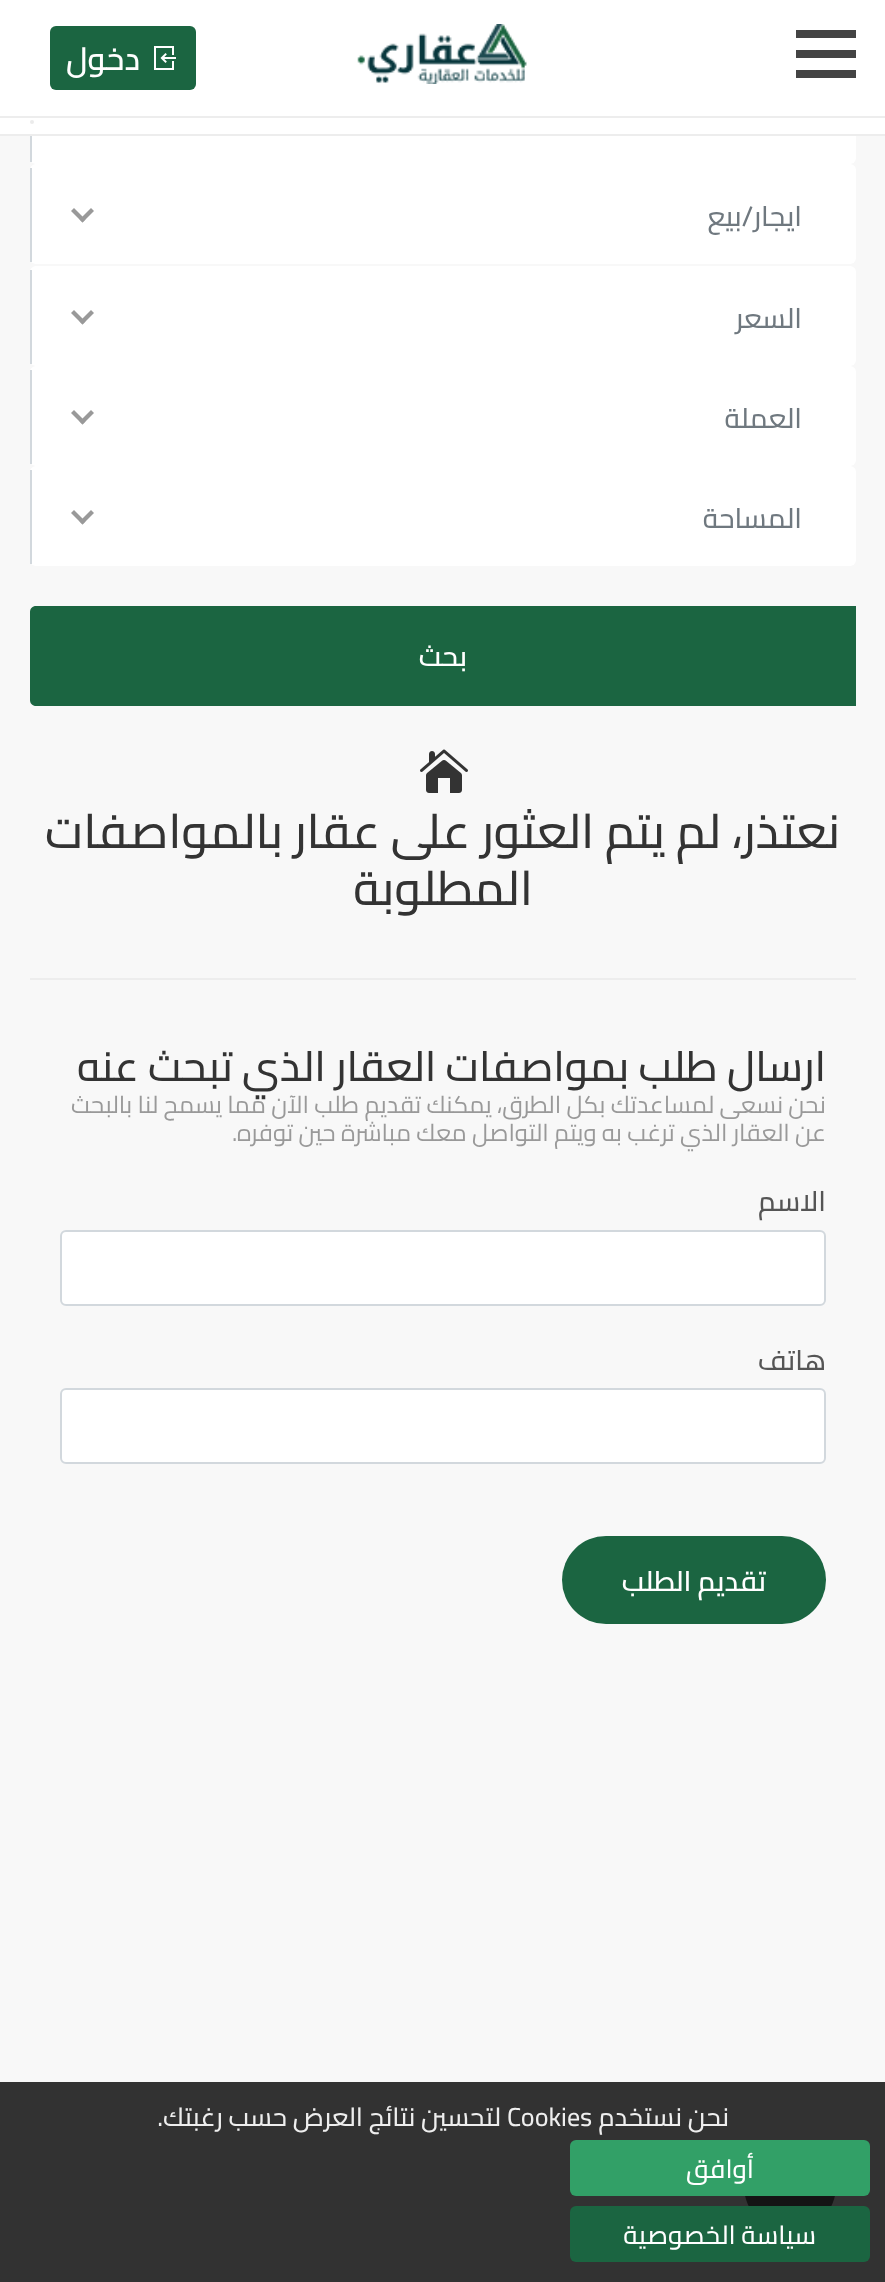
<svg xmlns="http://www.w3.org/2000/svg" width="885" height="2282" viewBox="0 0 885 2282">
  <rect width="100%" height="100%" fill="rgb(248,248,248)"/>
  <rect x="0" y="2082" width="885" height="200" fill="rgb(50,50,50)"/>
  <rect x="30" y="64" width="826" height="100" rx="6" fill="rgb(255,255,255)"/>
  <rect x="0" y="0" width="885" height="116" fill="rgb(255,255,255)"/>
  <rect x="0" y="116" width="885" height="2" fill="rgb(237,237,237)"/>
  <rect x="796" y="50" width="60" height="8" fill="rgb(68,68,68)"/>
  <rect x="796" y="30" width="60" height="8" fill="rgb(68,68,68)"/>
  <rect x="796" y="70" width="60" height="8" fill="rgb(68,68,68)"/>
  <image x="357" y="24" width="170" height="60" href="pic1.png"/>
  <rect x="50" y="26" width="146" height="64" rx="6" fill="rgb(27,101,65)"/>
  <image x="154" y="46" width="22" height="24" href="pic2.png"/>
  <text x="140" y="70" font-family="Cairo" font-size="32" font-weight="600" direction="rtl" fill="rgb(255,255,255)">دخول</text>
  <rect x="0" y="118" width="885" height="16" fill="rgb(255,255,255)"/>
  <rect x="0" y="134" width="885" height="2" fill="rgb(237,237,237)"/>
  <circle cx="32" cy="122" r="2" fill="rgb(235,235,235)"/>
  <rect x="30" y="136" width="2" height="26" fill="rgb(210,216,221)"/>
  <rect x="30" y="164" width="826" height="100" rx="6" fill="rgb(255,255,255)"/>
  <rect x="30" y="168" width="2" height="94" fill="rgb(210,216,221)"/>
  <text x="802" y="226" font-family="Cairo" font-size="28" font-weight="500" direction="rtl" fill="rgb(111,120,127)">ايجار/بيع</text>
  <path d="M91 208L94 211L82.5 222.5L79.5 219.5Z" fill="rgb(153,153,153)"/>
  <path d="M74 208L85.5 219.5L82.5 222.5L71 211Z" fill="rgb(153,153,153)"/>
  <rect x="30" y="266" width="826" height="100" rx="6" fill="rgb(255,255,255)"/>
  <rect x="30" y="270" width="2" height="94" fill="rgb(210,216,221)"/>
  <text x="802" y="328" font-family="Cairo" font-size="28" font-weight="500" direction="rtl" fill="rgb(111,120,127)">السعر</text>
  <path d="M91 310L94 313L82.5 324.5L79.5 321.5Z" fill="rgb(153,153,153)"/>
  <path d="M74 310L85.5 321.5L82.5 324.5L71 313Z" fill="rgb(153,153,153)"/>
  <rect x="30" y="366" width="826" height="100" rx="6" fill="rgb(255,255,255)"/>
  <rect x="30" y="370" width="2" height="94" fill="rgb(210,216,221)"/>
  <text x="802" y="428" font-family="Cairo" font-size="28" font-weight="500" direction="rtl" fill="rgb(111,120,127)">العملة</text>
  <path d="M91 410L94 413L82.5 424.5L79.5 421.5Z" fill="rgb(153,153,153)"/>
  <path d="M74 410L85.5 421.5L82.5 424.5L71 413Z" fill="rgb(153,153,153)"/>
  <rect x="30" y="466" width="826" height="100" rx="6" fill="rgb(255,255,255)"/>
  <rect x="30" y="470" width="2" height="94" fill="rgb(210,216,221)"/>
  <text x="802" y="528" font-family="Cairo" font-size="28" font-weight="500" direction="rtl" fill="rgb(111,120,127)">المساحة</text>
  <path d="M91 510L94 513L82.5 524.5L79.5 521.5Z" fill="rgb(153,153,153)"/>
  <path d="M74 510L85.5 521.5L82.5 524.5L71 513Z" fill="rgb(153,153,153)"/>
  <path d="M36 606H856V706H36C32.5 706 30 703.5 30 700V612C30 608.5 32.5 606 36 606Z" fill="rgb(27,101,65)"/>
  <text x="467" y="666" font-family="Cairo" font-size="28" font-weight="600" direction="rtl" fill="rgb(255,255,255)">بحث</text>
  <image x="420" y="749" width="48" height="44" href="pic3.png"/>
  <g font-family="Cairo" font-size="48" font-weight="500" direction="rtl" fill="rgb(51,51,51)">
    <text x="840" y="848">نعتذر، لم يتم العثور على عقار بالمواصفات</text>
    <text x="533" y="905">المطلوبة</text>
  </g>
  <rect x="30" y="978" width="826" height="2" fill="rgb(237,237,237)"/>
  <text x="826" y="1081" font-family="Cairo" font-size="42" font-weight="500" direction="rtl" fill="rgb(51,51,51)">ارسال طلب بمواصفات العقار الذي تبحث عنه</text>
  <g font-family="Cairo" font-size="24" direction="rtl" fill="rgb(153,153,153)">
    <text>
      <tspan x="826" y="1113">نحن نسعى لمساعدتك بكل الطرق، يمكنك تقديم طلب الآن مما يسمح لنا بالبحث</tspan>
      <tspan x="826" y="1141">عن العقار الذي ترغب به ويتم التواصل معك مباشرة حين توفره.</tspan>
    </text>
  </g>
  <text x="826" y="1211" font-family="Cairo" font-size="28" font-weight="500" direction="rtl" fill="rgb(85,85,85)">الاسم</text>
  <rect x="61" y="1231" width="764" height="74" rx="5" fill="rgb(255,255,255)" stroke="rgb(210,216,221)" stroke-width="2"/>
  <text x="826" y="1370" font-family="Cairo" font-size="28" font-weight="500" direction="rtl" fill="rgb(85,85,85)">هاتف</text>
  <rect x="61" y="1389" width="764" height="74" rx="5" fill="rgb(255,255,255)" stroke="rgb(210,216,221)" stroke-width="2"/>
  <rect x="562" y="1536" width="264" height="88" rx="44" fill="rgb(27,101,65)"/>
  <text x="766" y="1591" font-family="Cairo" font-size="28" font-weight="600" direction="rtl" fill="rgb(255,255,255)">تقديم الطلب</text>
  <text x="729" y="2126" font-family="Cairo" font-size="26" font-weight="500" direction="rtl" fill="rgb(238,238,238)">نحن نستخدم</text>
  <text x="507" y="2126" font-family="Cairo" font-size="26" font-weight="500" fill="rgb(238,238,238)">Cookies</text>
  <text x="501" y="2126" font-family="Cairo" font-size="26" font-weight="500" direction="rtl" fill="rgb(238,238,238)">لتحسين نتائج العرض حسب رغبتك.</text>
  <circle cx="790" cy="2186" r="46" fill="rgb(20,20,20)"/>
  <rect x="570" y="2140" width="300" height="56" rx="6" fill="rgb(50,160,103)"/>
  <text x="754" y="2178" font-family="Cairo" font-size="26" font-weight="500" direction="rtl" fill="rgb(255,255,255)">أوافق</text>
  <rect x="570" y="2206" width="300" height="56" rx="6" fill="rgb(27,101,65)"/>
  <text x="816" y="2244" font-family="Cairo" font-size="26" font-weight="500" direction="rtl" fill="rgb(255,255,255)">سياسة الخصوصية</text>
</svg>
